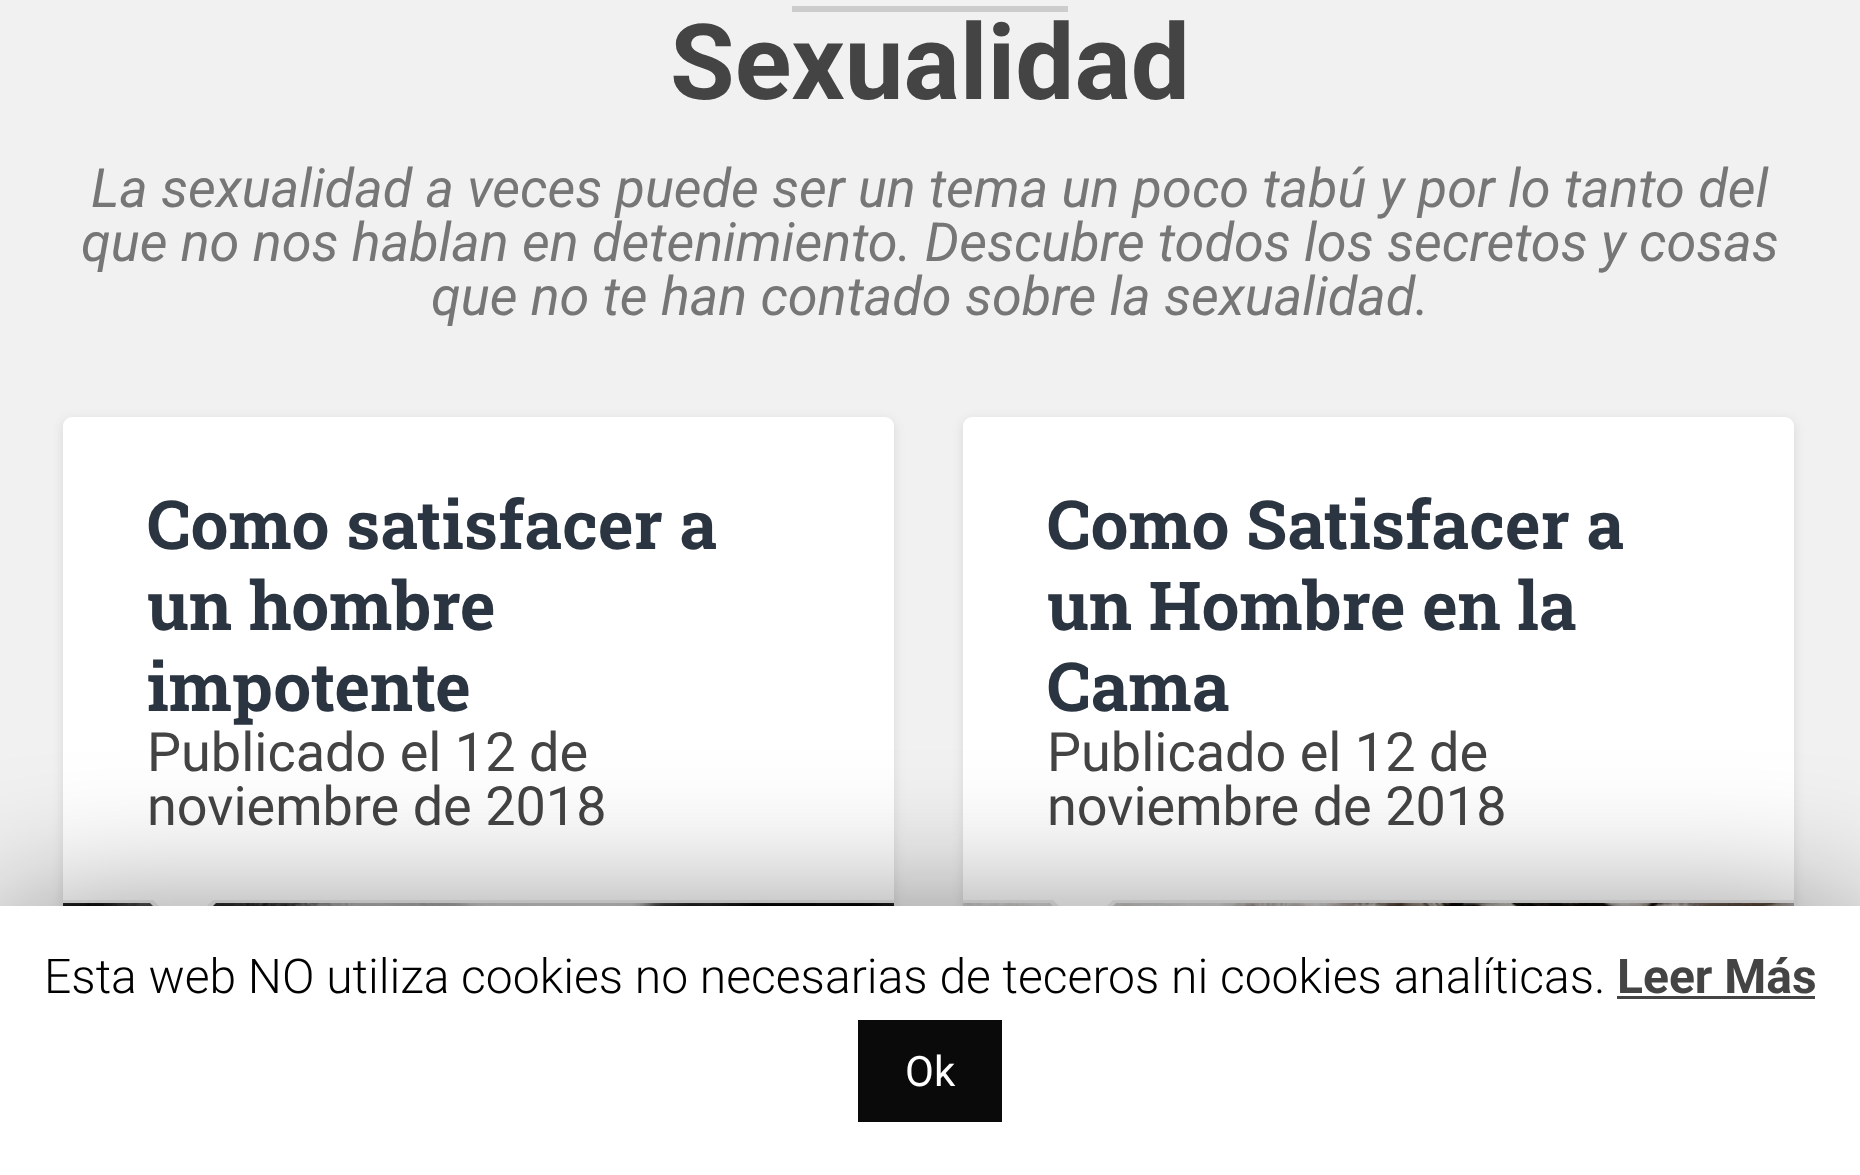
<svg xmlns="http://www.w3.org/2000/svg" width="1860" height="1175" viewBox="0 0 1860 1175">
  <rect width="100%" height="100%" fill="rgb(241,241,241)"/>
  <rect x="792" y="6" width="276" height="6" fill="rgb(204,204,204)"/>
  <text x="670" y="99" font-family="Roboto" font-size="105" font-weight="bold" fill="rgb(68,68,68)">Sexualidad</text>
  <g font-family="Roboto" font-size="54" font-style="italic" fill="rgb(118,118,118)">
    <text x="91" y="207">La sexualidad a veces puede ser un tema un poco tabú y por lo tanto del</text>
    <text x="81" y="261">que no nos hablan en detenimiento. Descubre todos los secretos y cosas</text>
    <text x="431" y="315">que no te han contado sobre la sexualidad.</text>
  </g>
  <rect x="63" y="420" width="831" height="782" rx="9" fill="rgba(0,0,0,0.1)" filter="blur(6px)"/>
  <rect x="63" y="417" width="831" height="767" rx="9" fill="rgb(255,255,255)"/>
  <rect x="63" y="900" width="831" height="3" fill="rgb(238,238,238)"/>
  <g font-family="Roboto Slab" font-size="67.5" font-weight="bold" fill="rgb(43,53,66)">
    <text>
      <tspan x="147" y="549">Como satisfacer a</tspan>
      <tspan x="147" y="630">un hombre</tspan>
      <tspan x="147" y="711">impotente</tspan>
    </text>
  </g>
  <g font-family="Roboto" font-size="54" fill="rgb(68,68,68)">
    <text>
      <tspan x="147" y="771">Publicado el 12 de</tspan>
      <tspan x="147" y="825">noviembre de 2018</tspan>
    </text>
  </g>
  <image x="63" y="903" width="831" height="3" href="pic1.png"/>
  <path d="M147 900H219L183 936Z" fill="rgb(238,238,238)"/>
  <path d="M150 897H216L183 930Z" fill="rgb(255,255,255)"/>
  <rect x="963" y="420" width="831" height="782" rx="9" fill="rgba(0,0,0,0.1)" filter="blur(6px)"/>
  <rect x="963" y="417" width="831" height="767" rx="9" fill="rgb(255,255,255)"/>
  <rect x="963" y="900" width="831" height="3" fill="rgb(238,238,238)"/>
  <g font-family="Roboto Slab" font-size="67.5" font-weight="bold" fill="rgb(43,53,66)">
    <text>
      <tspan x="1047" y="549">Como Satisfacer a</tspan>
      <tspan x="1047" y="630">un Hombre en la</tspan>
      <tspan x="1047" y="711">Cama</tspan>
    </text>
  </g>
  <g font-family="Roboto" font-size="54" fill="rgb(68,68,68)">
    <text>
      <tspan x="1047" y="771">Publicado el 12 de</tspan>
      <tspan x="1047" y="825">noviembre de 2018</tspan>
    </text>
  </g>
  <image x="963" y="903" width="831" height="3" href="pic2.png"/>
  <path d="M1047 900H1119L1083 936Z" fill="rgb(238,238,238)"/>
  <path d="M1050 897H1116L1083 930Z" fill="rgb(255,255,255)"/>
  <rect x="0" y="921" width="1860" height="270" fill="rgba(0,0,0,0.5)" filter="blur(75px)"/>
  <rect x="0" y="906" width="1860" height="269" fill="rgb(255,255,255)"/>
  <text x="44" y="993" font-family="Roboto" font-size="48" font-weight="300" fill="rgb(0,0,0)">Esta web NO utiliza cookies no necesarias de teceros ni cookies analíticas.</text>
  <text x="1617" y="993" font-family="Roboto" font-size="48" font-weight="bold" fill="rgb(68,68,68)">Leer Más</text>
  <rect x="1617" y="996" width="198" height="3" fill="rgb(68,68,68)"/>
  <rect x="858" y="1020" width="144" height="102" fill="rgb(10,10,10)"/>
  <text x="905" y="1086" font-family="Roboto" font-size="42" fill="rgb(255,255,255)">Ok</text>
</svg>
